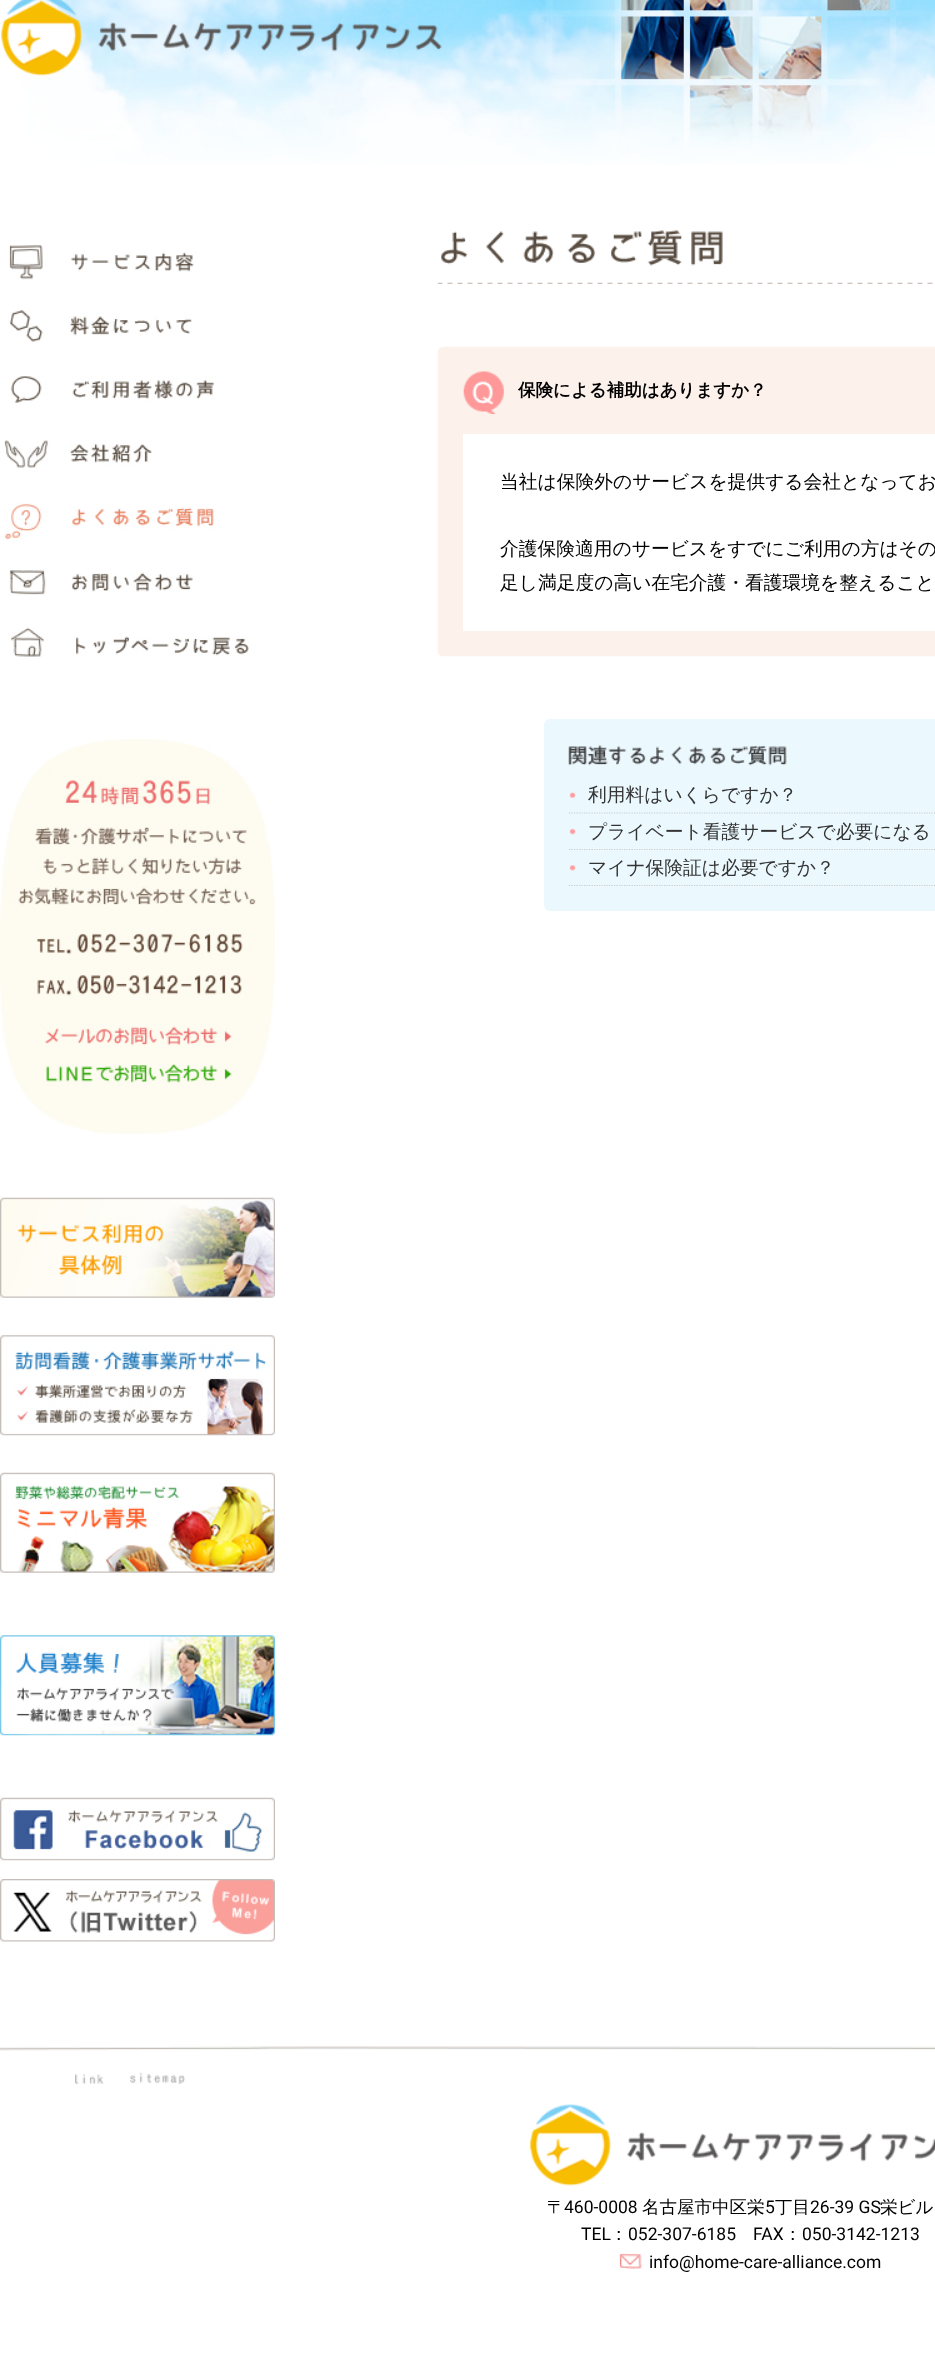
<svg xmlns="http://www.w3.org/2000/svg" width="935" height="2374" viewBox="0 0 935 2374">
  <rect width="100%" height="100%" fill="rgb(255,255,255)"/>
  <image x="21" y="0" width="914" height="165" href="pic1.png"/>
  <image x="1" y="0" width="441" height="76" href="pic2.png"/>
  <image x="9" y="245" width="185" height="35" href="pic3.png"/>
  <image x="9" y="310" width="183" height="32" href="pic4.png"/>
  <image x="11" y="376" width="203" height="27" href="pic5.png"/>
  <image x="4" y="440" width="148" height="28" href="pic6.png"/>
  <image x="4" y="503" width="210" height="37" href="pic7.png"/>
  <image x="9" y="570" width="184" height="25" href="pic8.png"/>
  <image x="11" y="627" width="238" height="30" href="pic9.png"/>
  <image x="0" y="739" width="275" height="395" href="pic10.png"/>
  <image x="0" y="1197" width="275" height="101" href="pic11.png"/>
  <image x="0" y="1335" width="275" height="101" href="pic12.png"/>
  <image x="0" y="1472" width="275" height="101" href="pic13.png"/>
  <image x="0" y="1635" width="275" height="101" href="pic14.png"/>
  <image x="0" y="1797" width="275" height="64" href="pic15.png"/>
  <image x="0" y="1879" width="275" height="63" href="pic16.png"/>
  <image x="437" y="282" width="496" height="2" href="pic17.png"/>
  <image x="441" y="230" width="282" height="36" href="pic18.png"/>
  <image x="437" y="346" width="498" height="311" href="pic19.png"/>
  <image x="463" y="371" width="41" height="43" href="pic20.png"/>
  <text x="518" y="396" font-family="WenQuanYi Zen Hei" font-size="17.5" font-weight="bold" fill="rgb(0,0,0)">保険による補助はありますか？</text>
  <rect x="463" y="434" width="472" height="197" fill="rgb(255,255,255)"/>
  <g font-family="WenQuanYi Zen Hei" font-size="18.75" font-weight="500" fill="rgb(0,0,0)">
    <text x="500" y="488">当社は保険外のサービスを提供する会社となってお</text>
    <text>
      <tspan x="500" y="555">介護保険適用のサービスをすでにご利用の方はその</tspan>
      <tspan x="500" y="589">足し満足度の高い在宅介護・看護環境を整えること</tspan>
    </text>
  </g>
  <rect x="544" y="719" width="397" height="192" rx="6" fill="rgb(235,248,254)"/>
  <image x="568" y="745" width="219" height="21" href="pic21.png"/>
  <image x="569" y="792" width="7" height="6" href="pic22.png"/>
  <path d="M569 813H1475" fill="none" stroke="rgb(204,204,204)" stroke-width="1.2" stroke-dasharray="1.25 1.25"/>
  <text x="588" y="801" font-family="WenQuanYi Zen Hei" font-size="18.75" font-weight="500" fill="rgb(51,51,51)">利用料はいくらですか？</text>
  <image x="569" y="828" width="7" height="7" href="pic23.png"/>
  <path d="M569 849.5H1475" fill="none" stroke="rgb(204,204,204)" stroke-width="1.2" stroke-dasharray="1.25 1.25"/>
  <text x="588" y="838" font-family="WenQuanYi Zen Hei" font-size="18.75" font-weight="500" fill="rgb(51,51,51)">プライベート看護サービスで必要になる</text>
  <image x="569" y="865" width="7" height="6" href="pic24.png"/>
  <path d="M569 885.5H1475" fill="none" stroke="rgb(204,204,204)" stroke-width="1.2" stroke-dasharray="1.25 1.25"/>
  <text x="588" y="874" font-family="WenQuanYi Zen Hei" font-size="18.75" font-weight="500" fill="rgb(51,51,51)">マイナ保険証は必要ですか？</text>
  <image x="0" y="2046" width="935" height="5" href="pic25.png"/>
  <image x="75" y="2074" width="29" height="10" href="pic26.png"/>
  <image x="130" y="2072" width="55" height="12" href="pic27.png"/>
  <image x="529" y="2104" width="406" height="82" href="pic28.png"/>
  <text x="547" y="2213" font-family="WenQuanYi Zen Hei" font-size="17.5" font-weight="500" fill="rgb(0,0,0)">〒</text>
  <text x="564" y="2213" font-family="Roboto" font-size="17.5" fill="rgb(0,0,0)">460-0008</text>
  <text x="642" y="2213" font-family="WenQuanYi Zen Hei" font-size="17.5" font-weight="500" fill="rgb(0,0,0)">名古屋市中区栄</text>
  <text x="765" y="2213" font-family="Roboto" font-size="17.5" fill="rgb(0,0,0)">5</text>
  <text x="775" y="2213" font-family="WenQuanYi Zen Hei" font-size="17.5" font-weight="500" fill="rgb(0,0,0)">丁目</text>
  <text x="810" y="2213" font-family="Roboto" font-size="17.5" fill="rgb(0,0,0)">26-39 GS</text>
  <text x="880" y="2213" font-family="WenQuanYi Zen Hei" font-size="17.5" font-weight="500" fill="rgb(0,0,0)">栄ビル</text>
  <text x="581" y="2240" font-family="Roboto" font-size="17.5" fill="rgb(0,0,0)">TEL</text>
  <text x="610" y="2240" font-family="WenQuanYi Zen Hei" font-size="17.5" font-weight="500" fill="rgb(0,0,0)">：</text>
  <g font-family="Roboto" font-size="17.5" fill="rgb(0,0,0)">
    <text x="628" y="2240">052-307-6185</text>
    <text x="753" y="2240">FAX</text>
  </g>
  <text x="784" y="2240" font-family="WenQuanYi Zen Hei" font-size="17.5" font-weight="500" fill="rgb(0,0,0)">：</text>
  <text x="802" y="2240" font-family="Roboto" font-size="17.5" fill="rgb(0,0,0)">050-3142-1213</text>
  <image x="619" y="2253" width="23" height="16" href="pic29.png"/>
  <text x="649" y="2268" font-family="Roboto" font-size="17.5" fill="rgb(0,0,0)">info@home-care-alliance.com</text>
</svg>
